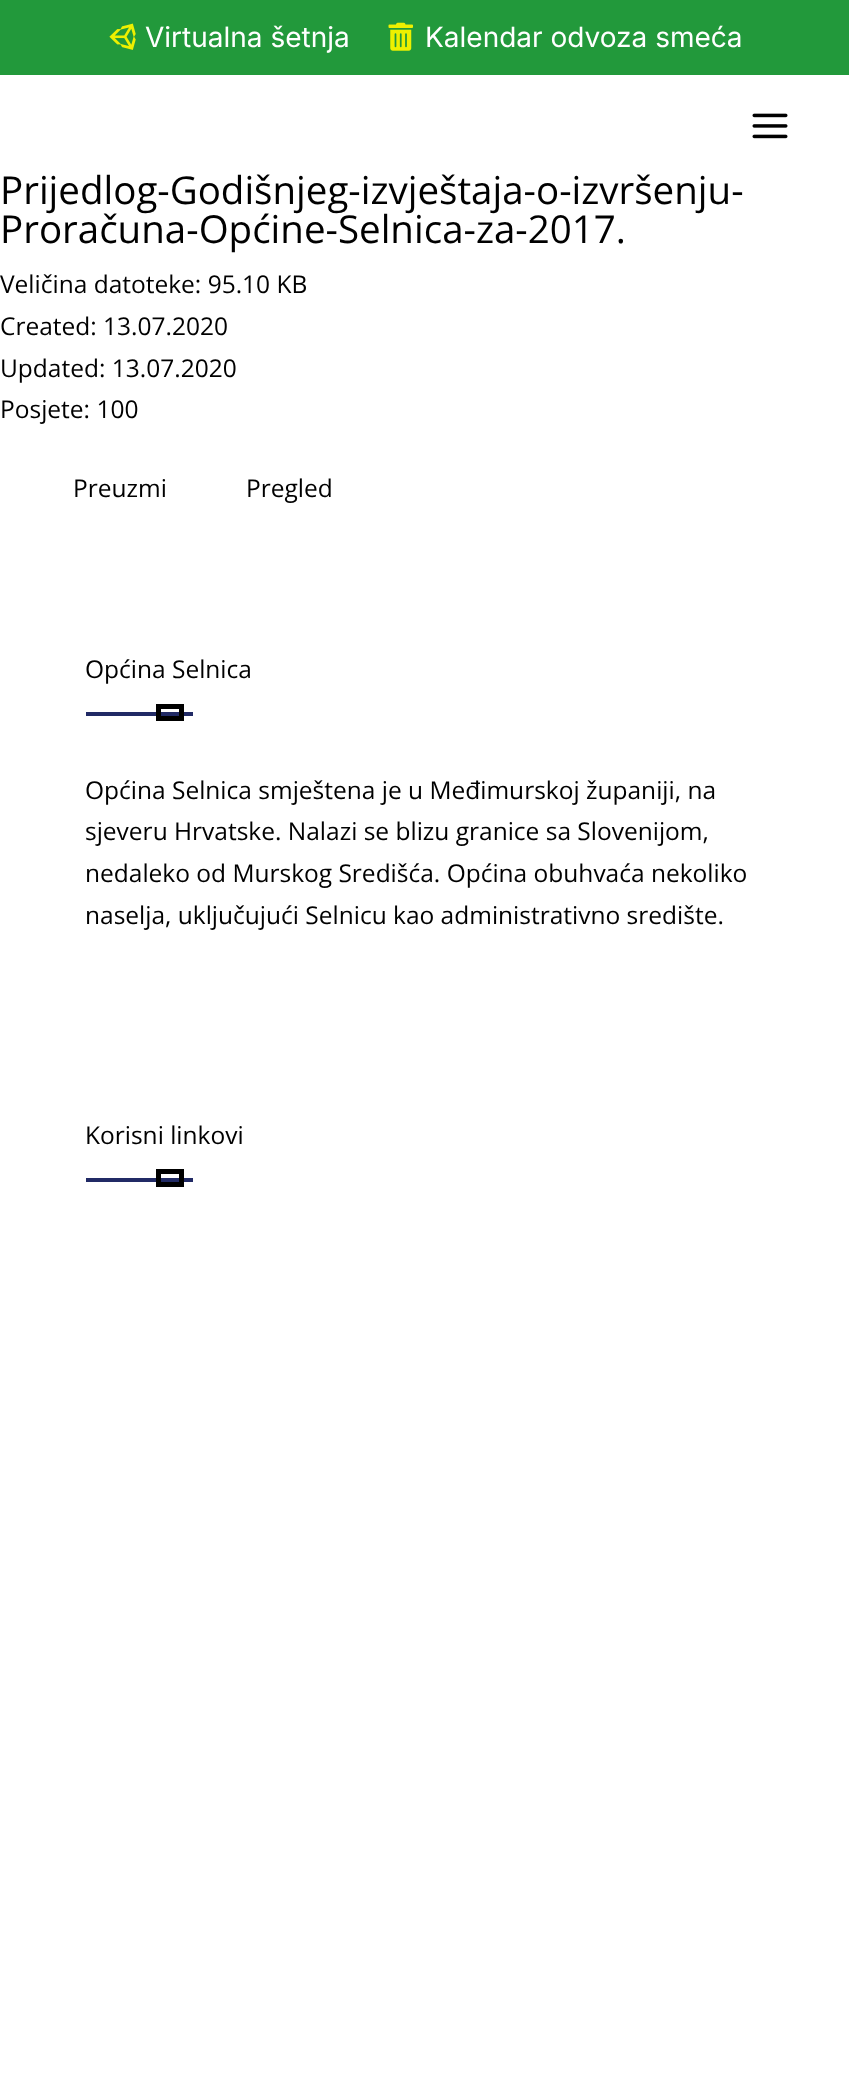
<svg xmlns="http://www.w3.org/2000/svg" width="849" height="2098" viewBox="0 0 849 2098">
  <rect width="100%" height="100%" fill="rgb(255,255,255)"/>
  <rect x="0" y="0" width="849" height="75" fill="rgb(34,153,59)"/>
  <image x="109" y="23" width="27" height="27" href="pic1.png"/>
  <text x="145" y="47" font-family="Inter" font-size="28" fill="rgb(255,255,255)">Virtualna šetnja</text>
  <image x="388" y="22" width="25" height="29" href="pic2.png"/>
  <text x="425" y="47" font-family="Inter" font-size="28" fill="rgb(255,255,255)">Kalendar odvoza smeća</text>
  <image x="752" y="113" width="36" height="26" href="pic3.png"/>
  <g font-family="Open Sans" font-size="38.5" fill="rgb(0,0,0)">
    <text>
      <tspan x="0" y="204">Prijedlog-Godišnjeg-izvještaja-o-izvršenju-</tspan>
      <tspan x="0" y="243">Proračuna-Općine-Selnica-za-2017.</tspan>
    </text>
  </g>
  <g font-family="Open Sans" font-size="24.5" fill="rgb(0,0,0)">
    <text>
      <tspan x="0" y="293">Veličina datoteke: 95.10 KB</tspan>
      <tspan x="0" y="335">Created: 13.07.2020</tspan>
      <tspan x="0" y="377">Updated: 13.07.2020</tspan>
      <tspan x="0" y="418">Posjete: 100</tspan>
    </text>
    <text x="73" y="497">Preuzmi</text>
    <text x="246" y="497">Pregled</text>
    <text x="85" y="678">Općina Selnica</text>
  </g>
  <rect x="86" y="712" width="107" height="4" fill="rgb(33,42,101)"/>
  <rect x="158.5" y="706.5" width="23" height="12" fill="none" stroke="rgb(0,0,0)" stroke-width="5"/>
  <g font-family="Open Sans" font-size="24.5" fill="rgb(0,0,0)">
    <text>
      <tspan x="85" y="799">Općina Selnica smještena je u Međimurskoj županiji, na</tspan>
      <tspan x="85" y="840">sjeveru Hrvatske. Nalazi se blizu granice sa Slovenijom,</tspan>
      <tspan x="85" y="882">nedaleko od Murskog Središća. Općina obuhvaća nekoliko</tspan>
      <tspan x="85" y="924">naselja, uključujući Selnicu kao administrativno središte.</tspan>
    </text>
    <text x="85" y="1144">Korisni linkovi</text>
  </g>
  <rect x="86" y="1178" width="107" height="4" fill="rgb(33,42,101)"/>
  <rect x="158.5" y="1171.5" width="23" height="13" fill="none" stroke="rgb(0,0,0)" stroke-width="5"/>
</svg>
